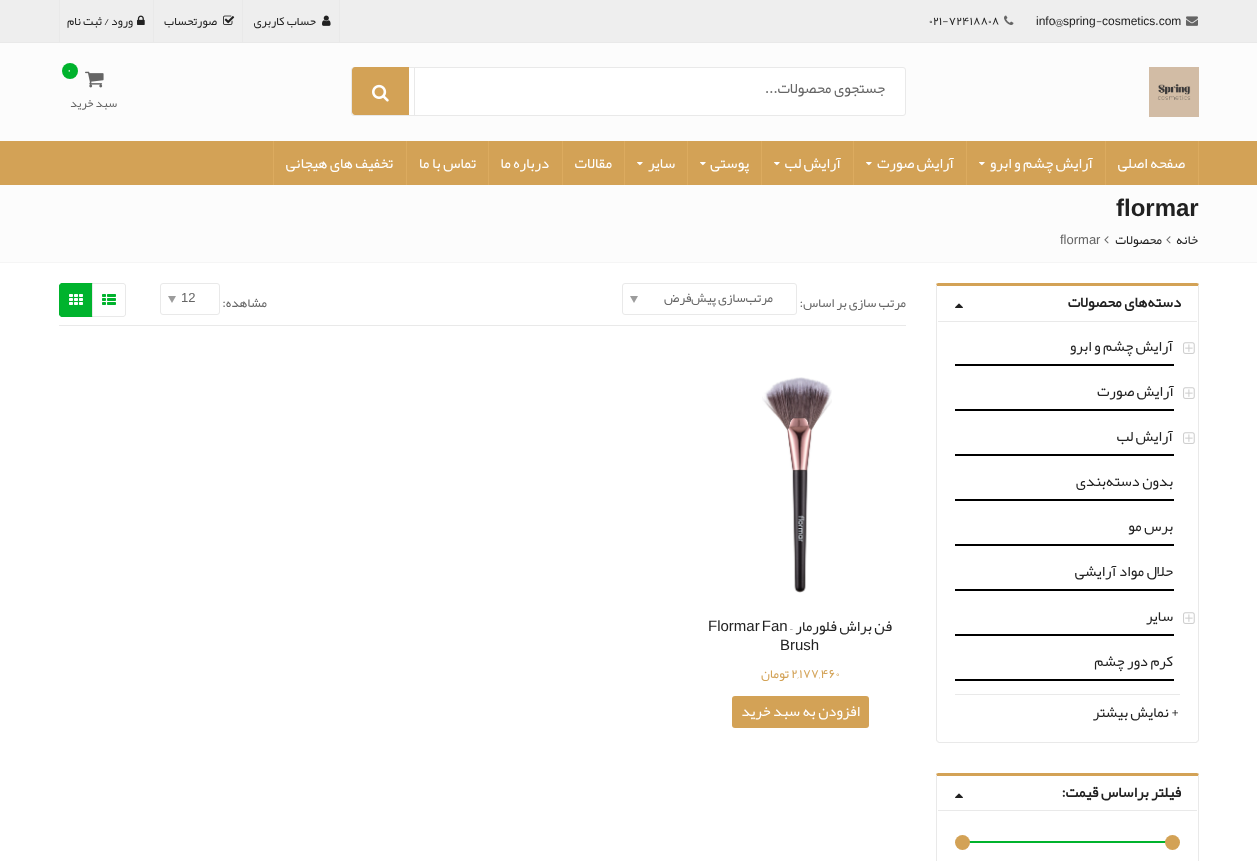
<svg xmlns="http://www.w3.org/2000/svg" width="1257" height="861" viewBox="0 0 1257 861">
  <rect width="100%" height="100%" fill="rgb(255,255,255)"/>
  <rect x="0" y="43" width="1257" height="219" fill="rgb(252,252,252)"/>
  <rect x="0" y="0" width="1257" height="42" fill="rgb(238,238,238)"/>
  <rect x="0" y="42" width="1257" height="1" fill="rgb(233,233,233)"/>
  <image x="1186" y="16" width="12" height="10" href="pic1.png"/>
  <text x="1102" y="25" font-family="Liberation Sans" font-size="12" fill="rgb(33,33,33)">cosmetics com</text>
  <text x="1096" y="25" font-family="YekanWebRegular" font-size="12" fill="rgb(33,33,33)">-</text>
  <text x="1063" y="25" font-family="Liberation Sans" font-size="12" fill="rgb(33,33,33)">spring</text>
  <text x="1055" y="25" font-family="YekanWebRegular" font-size="12" fill="rgb(33,33,33)">@</text>
  <text x="1036" y="25" font-family="Liberation Sans" font-size="12" fill="rgb(33,33,33)">info</text>
  <text x="1155" y="25" font-family="YekanWebRegular" font-size="12" fill="rgb(33,33,33)">.</text>
  <image x="1004" y="15" width="10" height="10" href="pic2.png"/>
  <text x="929" y="25" font-family="YekanWebRegular" font-size="12" fill="rgb(33,33,33)">۰۲۱-۷۲۴۱۸۸۰۸</text>
  <rect x="339" y="0" width="1" height="42" fill="rgb(233,233,233)"/>
  <image x="322" y="15" width="9" height="11" href="pic3.png"/>
  <text x="316" y="25" font-family="YekanWebRegular" font-size="12" direction="rtl" fill="rgb(33,33,33)">حساب کاربری</text>
  <rect x="242" y="0" width="1" height="42" fill="rgb(233,233,233)"/>
  <image x="223" y="15" width="12" height="10" href="pic4.png"/>
  <text x="217" y="25" font-family="YekanWebRegular" font-size="12" direction="rtl" fill="rgb(33,33,33)">صورتحساب</text>
  <rect x="153" y="0" width="1" height="42" fill="rgb(233,233,233)"/>
  <rect x="59" y="0" width="1" height="42" fill="rgb(233,233,233)"/>
  <image x="137" y="15" width="8" height="10" href="pic5.png"/>
  <text x="133" y="25" font-family="YekanWebRegular" font-size="12" direction="rtl" fill="rgb(33,33,33)">ورود / ثبت نام</text>
  <image x="1149" y="67" width="50" height="50" href="pic6.png"/>
  <rect x="351.5" y="67.5" width="554" height="48" rx="2.5" fill="rgb(255,255,255)" stroke="rgb(233,233,233)"/>
  <text x="885" y="93" font-family="YekanWebRegular" font-size="15" direction="rtl" fill="rgb(101,101,101)">جستجوی محصولات...</text>
  <rect x="414" y="68" width="1" height="47" fill="rgb(233,233,233)"/>
  <path d="M355 67H409V115H355C353.5 115 352 113.5 352 112V70C352 68.5 353.5 67 355 67Z" fill="rgb(211,162,86)"/>
  <image x="372" y="84" width="17" height="18" href="pic7.png"/>
  <image x="85" y="71" width="19" height="17" href="pic8.png"/>
  <circle cx="70" cy="71" r="8" fill="rgb(0,179,45)"/>
  <text x="66" y="74" font-family="DejaVu Sans Mono" font-size="11" fill="rgb(255,255,255)">۰</text>
  <text x="117" y="107" font-family="YekanWebRegular" font-size="12" direction="rtl" fill="rgb(101,101,101)">سبد خرید</text>
  <rect x="0" y="141" width="1257" height="44" fill="rgb(211,162,86)"/>
  <rect x="1198" y="141" width="1" height="44" fill="rgb(220,171,95)"/>
  <text x="1185" y="168" font-family="YekanWebRegular" font-size="15" direction="rtl" fill="rgb(255,255,255)">صفحه اصلی</text>
  <rect x="1105" y="141" width="1" height="44" fill="rgb(220,171,95)"/>
  <text x="1093" y="168" font-family="YekanWebRegular" font-size="15" direction="rtl" fill="rgb(255,255,255)">آرایش چشم و ابرو</text>
  <image x="979" y="162" width="6" height="4" href="pic9.png"/>
  <rect x="966" y="141" width="1" height="44" fill="rgb(220,171,95)"/>
  <text x="954" y="168" font-family="YekanWebRegular" font-size="15" direction="rtl" fill="rgb(255,255,255)">آرایش صورت</text>
  <image x="866" y="162" width="6" height="4" href="pic9.png"/>
  <rect x="853" y="141" width="1" height="44" fill="rgb(220,171,95)"/>
  <text x="841" y="168" font-family="YekanWebRegular" font-size="15" direction="rtl" fill="rgb(255,255,255)">آرایش لب</text>
  <image x="774" y="162" width="6" height="4" href="pic9.png"/>
  <rect x="761" y="141" width="1" height="44" fill="rgb(220,171,95)"/>
  <text x="749" y="168" font-family="YekanWebRegular" font-size="15" direction="rtl" fill="rgb(255,255,255)">پوستی</text>
  <image x="700" y="162" width="6" height="4" href="pic9.png"/>
  <rect x="687" y="141" width="1" height="44" fill="rgb(220,171,95)"/>
  <text x="675" y="168" font-family="YekanWebRegular" font-size="15" direction="rtl" fill="rgb(255,255,255)">سایر</text>
  <image x="637" y="162" width="6" height="4" href="pic9.png"/>
  <rect x="624" y="141" width="1" height="44" fill="rgb(220,171,95)"/>
  <text x="612" y="168" font-family="YekanWebRegular" font-size="15" direction="rtl" fill="rgb(255,255,255)">مقالات</text>
  <rect x="562" y="141" width="1" height="44" fill="rgb(220,171,95)"/>
  <text x="549" y="168" font-family="YekanWebRegular" font-size="15" direction="rtl" fill="rgb(255,255,255)">درباره ما</text>
  <rect x="488" y="141" width="1" height="44" fill="rgb(220,171,95)"/>
  <text x="476" y="168" font-family="YekanWebRegular" font-size="15" direction="rtl" fill="rgb(255,255,255)">تماس با ما</text>
  <rect x="406" y="141" width="1" height="44" fill="rgb(220,171,95)"/>
  <rect x="273" y="141" width="1" height="44" fill="rgb(220,171,95)"/>
  <text x="393" y="168" font-family="YekanWebRegular" font-size="15" direction="rtl" fill="rgb(255,255,255)">تخفیف های هیجانی</text>
  <rect x="0" y="262" width="1257" height="1" fill="rgb(245,245,245)"/>
  <text x="1116" y="216" font-family="Liberation Sans" font-size="24" font-weight="bold" fill="rgb(33,33,33)">flormar</text>
  <text x="1198" y="244" font-family="YekanWebRegular" font-size="13" direction="rtl" fill="rgb(33,33,33)">خانه</text>
  <image x="1166" y="236" width="5" height="8" href="pic10.png"/>
  <text x="1162" y="244" font-family="YekanWebRegular" font-size="13" direction="rtl" fill="rgb(33,33,33)">محصولات</text>
  <image x="1104" y="236" width="5" height="8" href="pic10.png"/>
  <text x="1060" y="244" font-family="Liberation Sans" font-size="13" fill="rgb(101,101,101)">flormar</text>
  <path d="M939 283C938 283 937 283 936 284L937 286H1198L1199 284C1198 283 1197 283 1196 283Z" fill="rgb(211,162,86)"/>
  <path d="M1199 740V286V284L1198 286V740L1197 741L1198 742Z" fill="rgb(233,233,233)"/>
  <path d="M939 743H1196L1198 742L1197 741L1196 742H939L938 741L937 742Z" fill="rgb(233,233,233)"/>
  <path d="M936 286V740L937 742L938 741L937 740V286L936 284Z" fill="rgb(233,233,233)"/>
  <rect x="938" y="321" width="259" height="1" fill="rgb(233,233,233)"/>
  <text x="1181" y="307" font-family="YekanWebRegular" font-size="15" font-weight="bold" direction="rtl" fill="rgb(33,33,33)">دسته‌های محصولات</text>
  <image x="955" y="303" width="8" height="5" href="pic11.png"/>
  <image x="1183" y="342" width="12" height="12" href="pic12.png"/>
  <rect x="955" y="364" width="219" height="2" fill="rgb(0,0,0)"/>
  <text x="1173" y="351" font-family="YekanWebRegular" font-size="15" direction="rtl" fill="rgb(33,33,33)">آرایش چشم و ابرو</text>
  <image x="1183" y="387" width="12" height="12" href="pic12.png"/>
  <rect x="955" y="409" width="219" height="2" fill="rgb(0,0,0)"/>
  <text x="1174" y="396" font-family="YekanWebRegular" font-size="15" direction="rtl" fill="rgb(33,33,33)">آرایش صورت</text>
  <image x="1183" y="432" width="12" height="12" href="pic12.png"/>
  <rect x="955" y="454" width="219" height="2" fill="rgb(0,0,0)"/>
  <text x="1173" y="441" font-family="YekanWebRegular" font-size="15" direction="rtl" fill="rgb(33,33,33)">آرایش لب</text>
  <rect x="955" y="499" width="219" height="2" fill="rgb(0,0,0)"/>
  <text x="1173" y="486" font-family="YekanWebRegular" font-size="15" direction="rtl" fill="rgb(33,33,33)">بدون دسته‌بندی</text>
  <rect x="955" y="544" width="219" height="2" fill="rgb(0,0,0)"/>
  <text x="1173" y="531" font-family="YekanWebRegular" font-size="15" direction="rtl" fill="rgb(33,33,33)">برس مو</text>
  <rect x="955" y="589" width="219" height="2" fill="rgb(0,0,0)"/>
  <text x="1173" y="576" font-family="YekanWebRegular" font-size="15" direction="rtl" fill="rgb(33,33,33)">حلال مواد آرایشی</text>
  <image x="1183" y="612" width="12" height="12" href="pic12.png"/>
  <rect x="955" y="634" width="219" height="2" fill="rgb(0,0,0)"/>
  <text x="1173" y="621" font-family="YekanWebRegular" font-size="15" direction="rtl" fill="rgb(33,33,33)">سایر</text>
  <rect x="955" y="679" width="219" height="2" fill="rgb(0,0,0)"/>
  <text x="1173" y="666" font-family="YekanWebRegular" font-size="15" direction="rtl" fill="rgb(33,33,33)">کرم دور چشم</text>
  <rect x="955" y="694" width="225" height="1" fill="rgb(233,233,233)"/>
  <text x="1179" y="717" font-family="YekanWebRegular" font-size="15" direction="rtl" fill="rgb(33,33,33)">+ نمایش بیشتر</text>
  <path d="M939 773C938 773 937 773 936 774L937 776H1198L1199 774C1198 773 1197 773 1196 773Z" fill="rgb(211,162,86)"/>
  <path d="M1199 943V776V774L1198 776V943L1197 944L1198 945Z" fill="rgb(233,233,233)"/>
  <path d="M936 776V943L937 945L938 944L937 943V776L936 774Z" fill="rgb(233,233,233)"/>
  <rect x="938" y="810" width="259" height="1" fill="rgb(233,233,233)"/>
  <text x="1181" y="797" font-family="YekanWebRegular" font-size="15" font-weight="bold" direction="rtl" fill="rgb(33,33,33)">فیلتر براساس قیمت:</text>
  <image x="955" y="793" width="8" height="5" href="pic11.png"/>
  <rect x="963" y="841" width="209" height="2" fill="rgb(0,179,45)"/>
  <circle cx="1172.5" cy="842.5" r="7.5" fill="rgb(211,162,86)"/>
  <circle cx="962.5" cy="842.5" r="7.5" fill="rgb(211,162,86)"/>
  <rect x="59" y="325" width="847" height="1" fill="rgb(233,233,233)"/>
  <text x="906" y="307" font-family="YekanWebRegular" font-size="13" direction="rtl" fill="rgb(101,101,101)">مرتب سازی بر اساس:</text>
  <rect x="622.5" y="283.5" width="174" height="31" rx="2.5" fill="none" stroke="rgb(233,233,233)"/>
  <text x="773" y="302" font-family="YekanWebRegular" font-size="13" direction="rtl" fill="rgb(101,101,101)">مرتب‌سازی پیش‌فرض</text>
  <image x="630" y="296" width="8" height="7" href="pic13.png"/>
  <rect x="160.5" y="283.5" width="59" height="31" rx="2.5" fill="none" stroke="rgb(233,233,233)"/>
  <text x="181" y="302" font-family="Liberation Sans" font-size="13" fill="rgb(101,101,101)">12</text>
  <image x="168" y="296" width="8" height="7" href="pic13.png"/>
  <text x="267" y="307" font-family="YekanWebRegular" font-size="13" direction="rtl" fill="rgb(101,101,101)">مشاهده:</text>
  <path d="M62 283.5H92.5V316.5H62C60.5 316.5 59.5 315.5 59.5 314V286C59.5 284.5 60.5 283.5 62 283.5Z" fill="rgb(0,179,45)" stroke="rgb(0,179,45)"/>
  <path d="M92.5 283.5H123C124.5 283.5 125.5 284.5 125.5 286V314C125.5 315.5 124.5 316.5 123 316.5H92.5Z" fill="none" stroke="rgb(233,233,233)"/>
  <image x="102" y="294" width="14" height="11" href="pic14.png"/>
  <image x="69" y="294" width="14" height="11" href="pic15.png"/>
  <image x="762" y="377" width="70" height="216" href="pic16.png"/>
  <text x="892" y="631" font-family="YekanWebRegular" font-size="15" direction="rtl" fill="rgb(33,33,33)">فن براش فلورمار –</text>
  <g font-family="Liberation Sans" font-size="15" fill="rgb(33,33,33)">
    <text x="708" y="631" word-spacing="-2">Flormar Fan</text>
    <text x="780" y="650">Brush</text>
  </g>
  <text x="791" y="678" font-family="YekanWebRegular" font-size="13" fill="rgb(211,162,86)">۲,۱۷۷,۴۶۰</text>
  <text x="789" y="678" font-family="YekanWebRegular" font-size="13" direction="rtl" fill="rgb(211,162,86)">تومان</text>
  <rect x="732" y="696" width="137" height="32" rx="3" fill="rgb(211,162,86)"/>
  <text x="860" y="716" font-family="YekanWebRegular" font-size="15" direction="rtl" fill="rgb(255,255,255)">افزودن به سبد خرید</text>
</svg>
